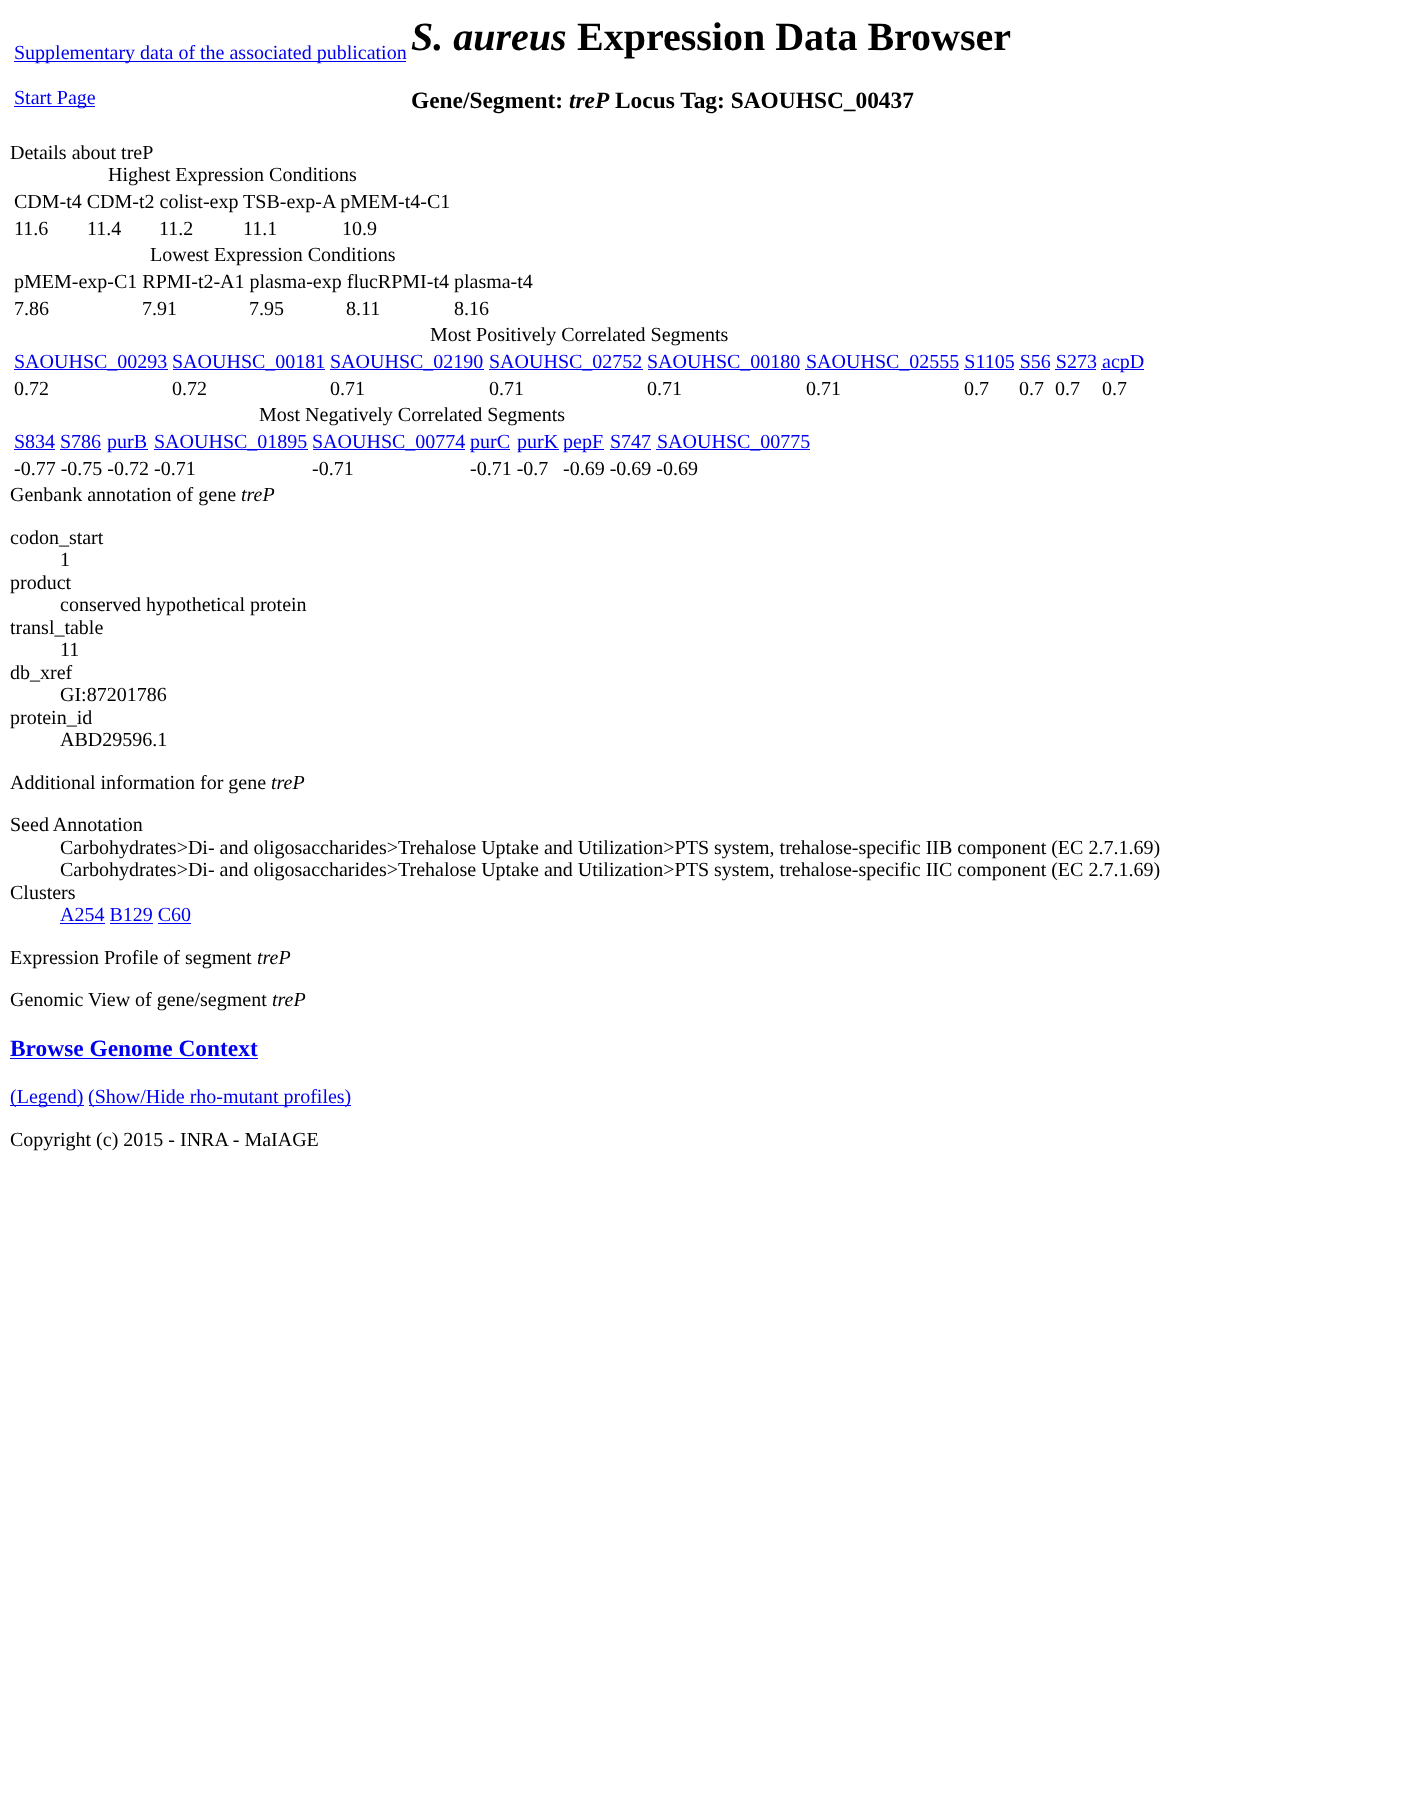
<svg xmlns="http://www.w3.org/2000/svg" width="1426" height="1806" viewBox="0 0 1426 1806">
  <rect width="100%" height="100%" fill="rgb(255,255,255)"/>
  <rect x="14" y="61" width="392" height="1" fill="rgb(0,0,238)"/>
  <text x="14" y="59" font-family="Liberation Serif" font-size="20" fill="rgb(0,0,238)">Supplementary data of the associated publication</text>
  <rect x="14" y="106" width="81" height="1" fill="rgb(0,0,238)"/>
  <text x="14" y="104" font-family="Liberation Serif" font-size="20" fill="rgb(0,0,238)">Start Page</text>
  <text x="411" y="50" font-family="Liberation Serif" font-size="40" font-weight="bold" font-style="italic" fill="rgb(0,0,0)">S. aureus</text>
  <text x="577" y="50" font-family="Liberation Serif" font-size="40" font-weight="bold" fill="rgb(0,0,0)">Expression Data Browser</text>
  <text x="411" y="108" font-family="Liberation Serif" font-size="23.4" font-weight="bold" fill="rgb(0,0,0)">Gene/Segment:</text>
  <text x="569" y="108" font-family="Liberation Serif" font-size="23.4" font-weight="bold" font-style="italic" fill="rgb(0,0,0)">treP</text>
  <text x="615" y="108" font-family="Liberation Serif" font-size="23.4" font-weight="bold" fill="rgb(0,0,0)">Locus Tag: SAOUHSC_00437</text>
  <g font-family="Liberation Serif" font-size="20" fill="rgb(0,0,0)">
    <text x="10" y="159">Details about treP</text>
    <text x="108" y="181">Highest Expression Conditions</text>
    <text>
      <tspan x="14" y="208">CDM-t4 CDM-t2 colist-exp TSB-exp-A pMEM-t4-C1</tspan>
      <tspan x="14" y="235">11.6</tspan>
    </text>
    <text x="87" y="235">11.4</text>
    <text x="159" y="235">11.2</text>
    <text x="243" y="235">11.1</text>
    <text x="342" y="235">10.9</text>
    <text x="150" y="261">Lowest Expression Conditions</text>
    <text>
      <tspan x="14" y="288">pMEM-exp-C1 RPMI-t2-A1 plasma-exp flucRPMI-t4 plasma-t4</tspan>
      <tspan x="14" y="315">7.86</tspan>
    </text>
    <text x="142" y="315">7.91</text>
    <text x="249" y="315">7.95</text>
    <text x="346" y="315">8.11</text>
    <text x="454" y="315">8.16</text>
    <text x="430" y="341">Most Positively Correlated Segments</text>
  </g>
  <rect x="14" y="369" width="154" height="1" fill="rgb(0,0,238)"/>
  <text x="14" y="368" font-family="Liberation Serif" font-size="20" fill="rgb(0,0,238)">SAOUHSC_00293</text>
  <rect x="173" y="369" width="152" height="1" fill="rgb(0,0,238)"/>
  <text x="172" y="368" font-family="Liberation Serif" font-size="20" fill="rgb(0,0,238)">SAOUHSC_00181</text>
  <rect x="330" y="369" width="154" height="1" fill="rgb(0,0,238)"/>
  <text x="330" y="368" font-family="Liberation Serif" font-size="20" fill="rgb(0,0,238)">SAOUHSC_02190</text>
  <rect x="489" y="369" width="154" height="1" fill="rgb(0,0,238)"/>
  <text x="489" y="368" font-family="Liberation Serif" font-size="20" fill="rgb(0,0,238)">SAOUHSC_02752</text>
  <rect x="648" y="369" width="152" height="1" fill="rgb(0,0,238)"/>
  <text x="647" y="368" font-family="Liberation Serif" font-size="20" fill="rgb(0,0,238)">SAOUHSC_00180</text>
  <rect x="805" y="369" width="154" height="1" fill="rgb(0,0,238)"/>
  <text x="806" y="368" font-family="Liberation Serif" font-size="20" fill="rgb(0,0,238)">SAOUHSC_02555 S1105 S56 S273</text>
  <rect x="1101" y="369" width="43" height="1" fill="rgb(0,0,238)"/>
  <text x="1102" y="368" font-family="Liberation Serif" font-size="20" fill="rgb(0,0,238)">acpD</text>
  <rect x="964" y="369" width="50" height="1" fill="rgb(0,0,238)"/>
  <rect x="1019" y="369" width="31" height="1" fill="rgb(0,0,238)"/>
  <rect x="1055" y="369" width="41" height="1" fill="rgb(0,0,238)"/>
  <g font-family="Liberation Serif" font-size="20" fill="rgb(0,0,0)">
    <text x="14" y="395">0.72</text>
    <text x="172" y="395">0.72</text>
    <text x="330" y="395">0.71</text>
    <text x="489" y="395">0.71</text>
    <text x="647" y="395">0.71</text>
    <text x="806" y="395">0.71</text>
    <text x="964" y="395">0.7</text>
    <text x="1019" y="395">0.7</text>
    <text x="1055" y="395">0.7</text>
    <text x="1102" y="395">0.7</text>
    <text x="259" y="421">Most Negatively Correlated Segments</text>
  </g>
  <text x="14" y="448" font-family="Liberation Serif" font-size="20" fill="rgb(0,0,238)">S834</text>
  <rect x="14" y="449" width="41" height="1" fill="rgb(0,0,238)"/>
  <text x="60" y="448" font-family="Liberation Serif" font-size="20" fill="rgb(0,0,238)">S786</text>
  <rect x="60" y="449" width="41" height="1" fill="rgb(0,0,238)"/>
  <rect x="108" y="449" width="40" height="1" fill="rgb(0,0,238)"/>
  <text x="107" y="448" font-family="Liberation Serif" font-size="20" fill="rgb(0,0,238)">purB</text>
  <rect x="154" y="449" width="154" height="1" fill="rgb(0,0,238)"/>
  <text x="154" y="448" font-family="Liberation Serif" font-size="20" fill="rgb(0,0,238)">SAOUHSC_01895</text>
  <rect x="313" y="449" width="152" height="1" fill="rgb(0,0,238)"/>
  <text x="312" y="448" font-family="Liberation Serif" font-size="20" fill="rgb(0,0,238)">SAOUHSC_00774</text>
  <rect x="470" y="449" width="40" height="1" fill="rgb(0,0,238)"/>
  <text x="470" y="448" font-family="Liberation Serif" font-size="20" fill="rgb(0,0,238)">purC</text>
  <rect x="518" y="449" width="41" height="1" fill="rgb(0,0,238)"/>
  <text x="517" y="448" font-family="Liberation Serif" font-size="20" fill="rgb(0,0,238)">purK</text>
  <rect x="564" y="449" width="40" height="1" fill="rgb(0,0,238)"/>
  <g font-family="Liberation Serif" font-size="20" fill="rgb(0,0,238)">
    <text x="563" y="448">pepF</text>
    <text x="610" y="448">S747</text>
  </g>
  <rect x="610" y="449" width="41" height="1" fill="rgb(0,0,238)"/>
  <rect x="656" y="449" width="154" height="1" fill="rgb(0,0,238)"/>
  <text x="657" y="448" font-family="Liberation Serif" font-size="20" fill="rgb(0,0,238)">SAOUHSC_00775</text>
  <g font-family="Liberation Serif" font-size="20" fill="rgb(0,0,0)">
    <text x="14" y="475">-0.77 -0.75 -0.72 -0.71</text>
    <text x="312" y="475">-0.71</text>
    <text x="470" y="475">-0.71 -0.7</text>
    <text x="563" y="475">-0.69 -0.69 -0.69</text>
    <text x="10" y="501">Genbank annotation of gene</text>
  </g>
  <text x="241" y="501" font-family="Liberation Serif" font-size="20" font-style="italic" fill="rgb(0,0,0)">treP</text>
  <g font-family="Liberation Serif" font-size="20" fill="rgb(0,0,0)">
    <text x="10" y="544">codon_start</text>
    <text x="60" y="566">1</text>
    <text x="10" y="589">product</text>
    <text x="60" y="611">conserved hypothetical protein</text>
    <text x="10" y="634">transl_table</text>
    <text x="60" y="656">11</text>
    <text x="10" y="679">db_xref</text>
    <text x="60" y="701">GI:87201786</text>
    <text x="10" y="724">protein_id</text>
    <text x="60" y="746">ABD29596.1</text>
    <text x="10" y="789">Additional information for gene</text>
  </g>
  <text x="271" y="789" font-family="Liberation Serif" font-size="20" font-style="italic" fill="rgb(0,0,0)">treP</text>
  <g font-family="Liberation Serif" font-size="20" fill="rgb(0,0,0)">
    <text x="10" y="831">Seed Annotation</text>
    <text>
      <tspan x="60" y="854">Carbohydrates&gt;Di- and oligosaccharides&gt;Trehalose Uptake and Utilization&gt;PTS system, trehalose-specific IIB component (EC 2.7.1.69)</tspan>
      <tspan x="60" y="876">Carbohydrates&gt;Di- and oligosaccharides&gt;Trehalose Uptake and Utilization&gt;PTS system, trehalose-specific IIC component (EC 2.7.1.69)</tspan>
    </text>
    <text x="10" y="899">Clusters</text>
  </g>
  <text x="60" y="921" font-family="Liberation Serif" font-size="20" fill="rgb(0,0,238)">A254 B129 C60</text>
  <rect x="60" y="923" width="45" height="1" fill="rgb(0,0,238)"/>
  <rect x="110" y="923" width="43" height="1" fill="rgb(0,0,238)"/>
  <rect x="158" y="923" width="33" height="1" fill="rgb(0,0,238)"/>
  <text x="10" y="964" font-family="Liberation Serif" font-size="20" fill="rgb(0,0,0)">Expression Profile of segment</text>
  <text x="257" y="964" font-family="Liberation Serif" font-size="20" font-style="italic" fill="rgb(0,0,0)">treP</text>
  <text x="10" y="1006" font-family="Liberation Serif" font-size="20" fill="rgb(0,0,0)">Genomic View of gene/segment</text>
  <text x="272" y="1006" font-family="Liberation Serif" font-size="20" font-style="italic" fill="rgb(0,0,0)">treP</text>
  <text x="10" y="1056" font-family="Liberation Serif" font-size="23.4" font-weight="bold" fill="rgb(0,0,238)">Browse Genome Context</text>
  <rect x="10" y="1058" width="248" height="1" fill="rgb(0,0,238)"/>
  <rect x="10" y="1105" width="74" height="1" fill="rgb(0,0,238)"/>
  <text x="10" y="1103" font-family="Liberation Serif" font-size="20" fill="rgb(0,0,238)">(Legend)</text>
  <rect x="89" y="1105" width="262" height="1" fill="rgb(0,0,238)"/>
  <text x="88" y="1103" font-family="Liberation Serif" font-size="20" fill="rgb(0,0,238)">(Show/Hide rho-mutant profiles)</text>
  <text x="10" y="1146" font-family="Liberation Serif" font-size="20" fill="rgb(0,0,0)">Copyright (c) 2015 - INRA - MaIAGE</text>
</svg>
